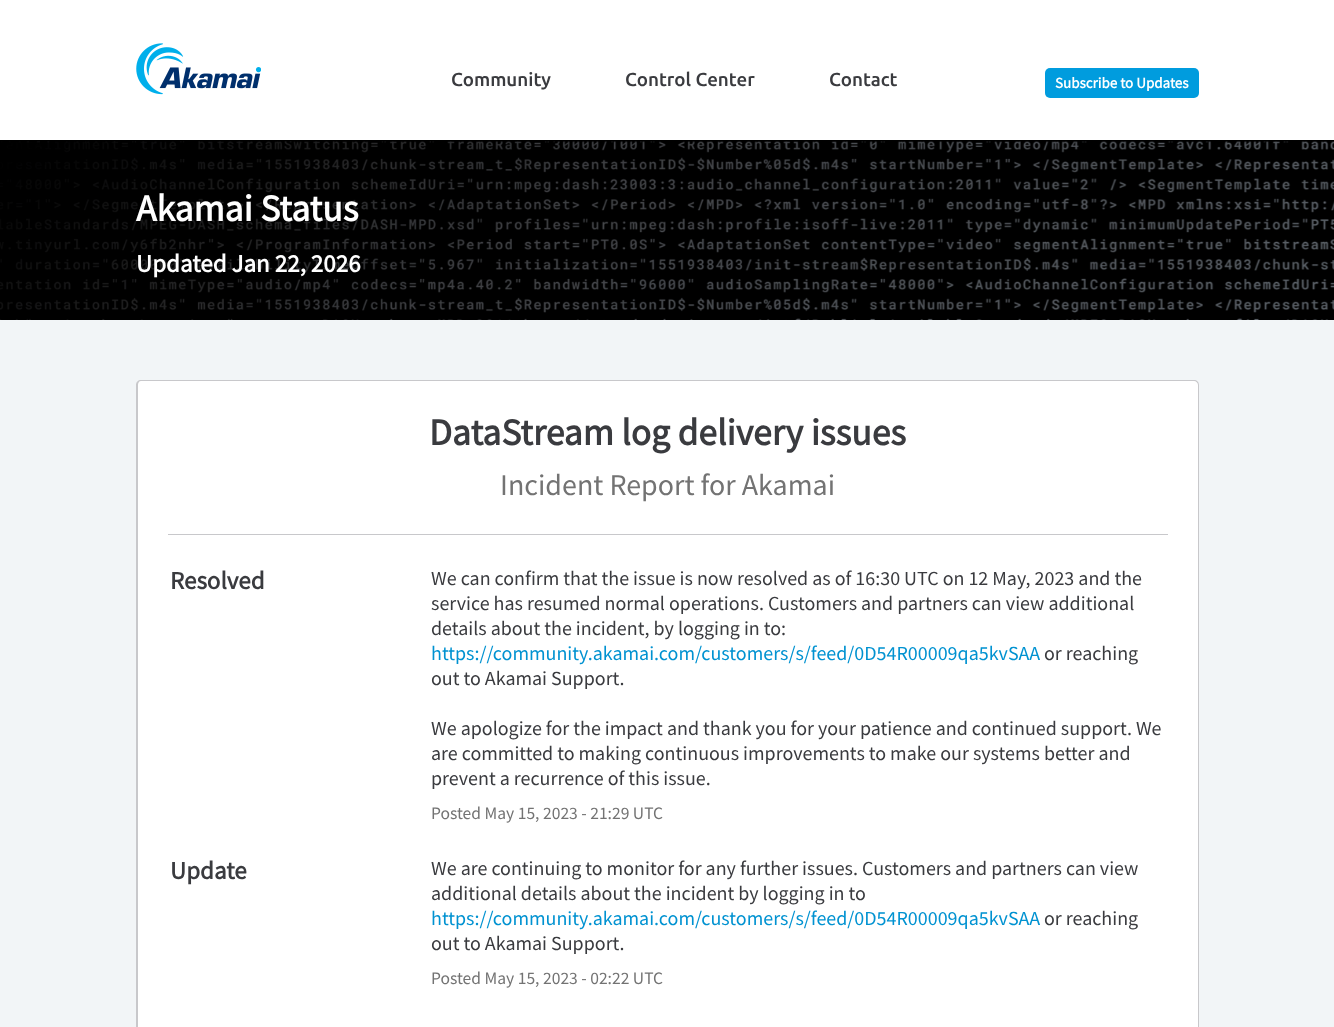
<svg xmlns="http://www.w3.org/2000/svg" width="1334" height="1027" viewBox="0 0 1334 1027">
  <rect width="100%" height="100%" fill="rgb(242,245,247)"/>
  <rect x="0" y="0" width="1334" height="140" fill="rgb(255,255,255)"/>
  <image x="136" y="43" width="125" height="52" href="pic1.png"/>
  <g font-family="Ubuntu" font-size="18.75" font-weight="500" fill="rgb(58,59,63)">
    <text x="451" y="86">Community</text>
    <text x="625" y="86">Control Center</text>
    <text x="829" y="86">Contact</text>
  </g>
  <rect x="1045" y="68" width="154" height="30" rx="5" fill="rgb(0,156,222)"/>
  <text x="1055" y="88" font-family="Source Sans Pro" font-size="15" font-weight="bold" fill="rgb(255,255,255)">Subscribe to Updates</text>
  <rect x="0" y="140" width="1334" height="1" fill="rgb(0,0,0)"/>
  <image x="0" y="141" width="1334" height="179" href="pic2.png"/>
  <text x="136" y="221" font-family="Source Sans Pro" font-size="37.5" font-weight="bold" fill="rgb(255,255,255)">Akamai Status</text>
  <text x="136" y="272" font-family="Source Sans Pro" font-size="25" font-weight="bold" fill="rgb(255,255,255)">Updated Jan 22, 2026</text>
  <path d="M141 380H1194C1197 380 1199 382 1199 385V535H136V385C136 382 138 380 141 380Z" fill="rgb(255,255,255)"/>
  <path d="M141 380H1194C1197 380 1199 382 1199 385V535H136V385C136 382 138 380 141 380ZM141 381H1194C1196 381 1198 383 1198 385V535H138V385C138 383 139 381 141 381Z" fill="rgb(200,200,203)" fill-rule="evenodd"/>
  <text x="429" y="445" font-family="Source Sans Pro" font-size="37.5" font-weight="bold" fill="rgb(58,59,63)">DataStream log delivery issues</text>
  <rect x="168" y="534" width="1000" height="1" fill="rgb(200,200,203)"/>
  <text x="500" y="495" font-family="Source Sans Pro" font-size="30" fill="rgb(115,115,115)">Incident Report for Akamai</text>
  <rect x="138" y="535" width="1060" height="492" fill="rgb(255,255,255)"/>
  <path d="M136 535H1199V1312C1199 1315 1197 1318 1194 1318H141C138 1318 136 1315 136 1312ZM138 535H1198V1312C1198 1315 1196 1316 1194 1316H141C139 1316 138 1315 138 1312Z" fill="rgb(200,200,203)" fill-rule="evenodd"/>
  <text x="170" y="589" font-family="Source Sans Pro" font-size="25" font-weight="bold" fill="rgb(58,59,63)">Resolved</text>
  <g font-family="Source Sans Pro" font-size="20" fill="rgb(58,59,63)">
    <text>
      <tspan x="431" y="585">We can confirm that the issue is now resolved as of 16:30 UTC on 12 May, 2023 and the</tspan>
      <tspan x="431" y="610">service has resumed normal operations. Customers and partners can view additional</tspan>
      <tspan x="431" y="635">details about the incident, by logging in to:</tspan>
    </text>
  </g>
  <text x="431" y="660" font-family="Source Sans Pro" font-size="20" fill="rgb(0,146,209)">https://community.akamai.com/customers/s/feed/0D54R00009qa5kvSAA</text>
  <g font-family="Source Sans Pro" font-size="20" fill="rgb(58,59,63)">
    <text x="1044" y="660">or reaching</text>
    <text x="431" y="685">out to Akamai Support.</text>
    <text>
      <tspan x="431" y="735">We apologize for the impact and thank you for your patience and continued support. We</tspan>
      <tspan x="431" y="760">are committed to making continuous improvements to make our systems better and</tspan>
      <tspan x="431" y="785">prevent a recurrence of this issue.</tspan>
    </text>
  </g>
  <text x="431" y="819" font-family="Source Sans Pro" font-size="17.5" fill="rgb(115,115,115)">Posted May 15, 2023 - 21:29 UTC</text>
  <text x="170" y="879" font-family="Source Sans Pro" font-size="25" font-weight="bold" fill="rgb(58,59,63)">Update</text>
  <g font-family="Source Sans Pro" font-size="20" fill="rgb(58,59,63)">
    <text>
      <tspan x="431" y="875">We are continuing to monitor for any further issues. Customers and partners can view</tspan>
      <tspan x="431" y="900">additional details about the incident by logging in to</tspan>
    </text>
  </g>
  <text x="431" y="925" font-family="Source Sans Pro" font-size="20" fill="rgb(0,146,209)">https://community.akamai.com/customers/s/feed/0D54R00009qa5kvSAA</text>
  <g font-family="Source Sans Pro" font-size="20" fill="rgb(58,59,63)">
    <text x="1044" y="925">or reaching</text>
    <text x="431" y="950">out to Akamai Support.</text>
  </g>
  <text x="431" y="984" font-family="Source Sans Pro" font-size="17.5" fill="rgb(115,115,115)">Posted May 15, 2023 - 02:22 UTC</text>
</svg>
